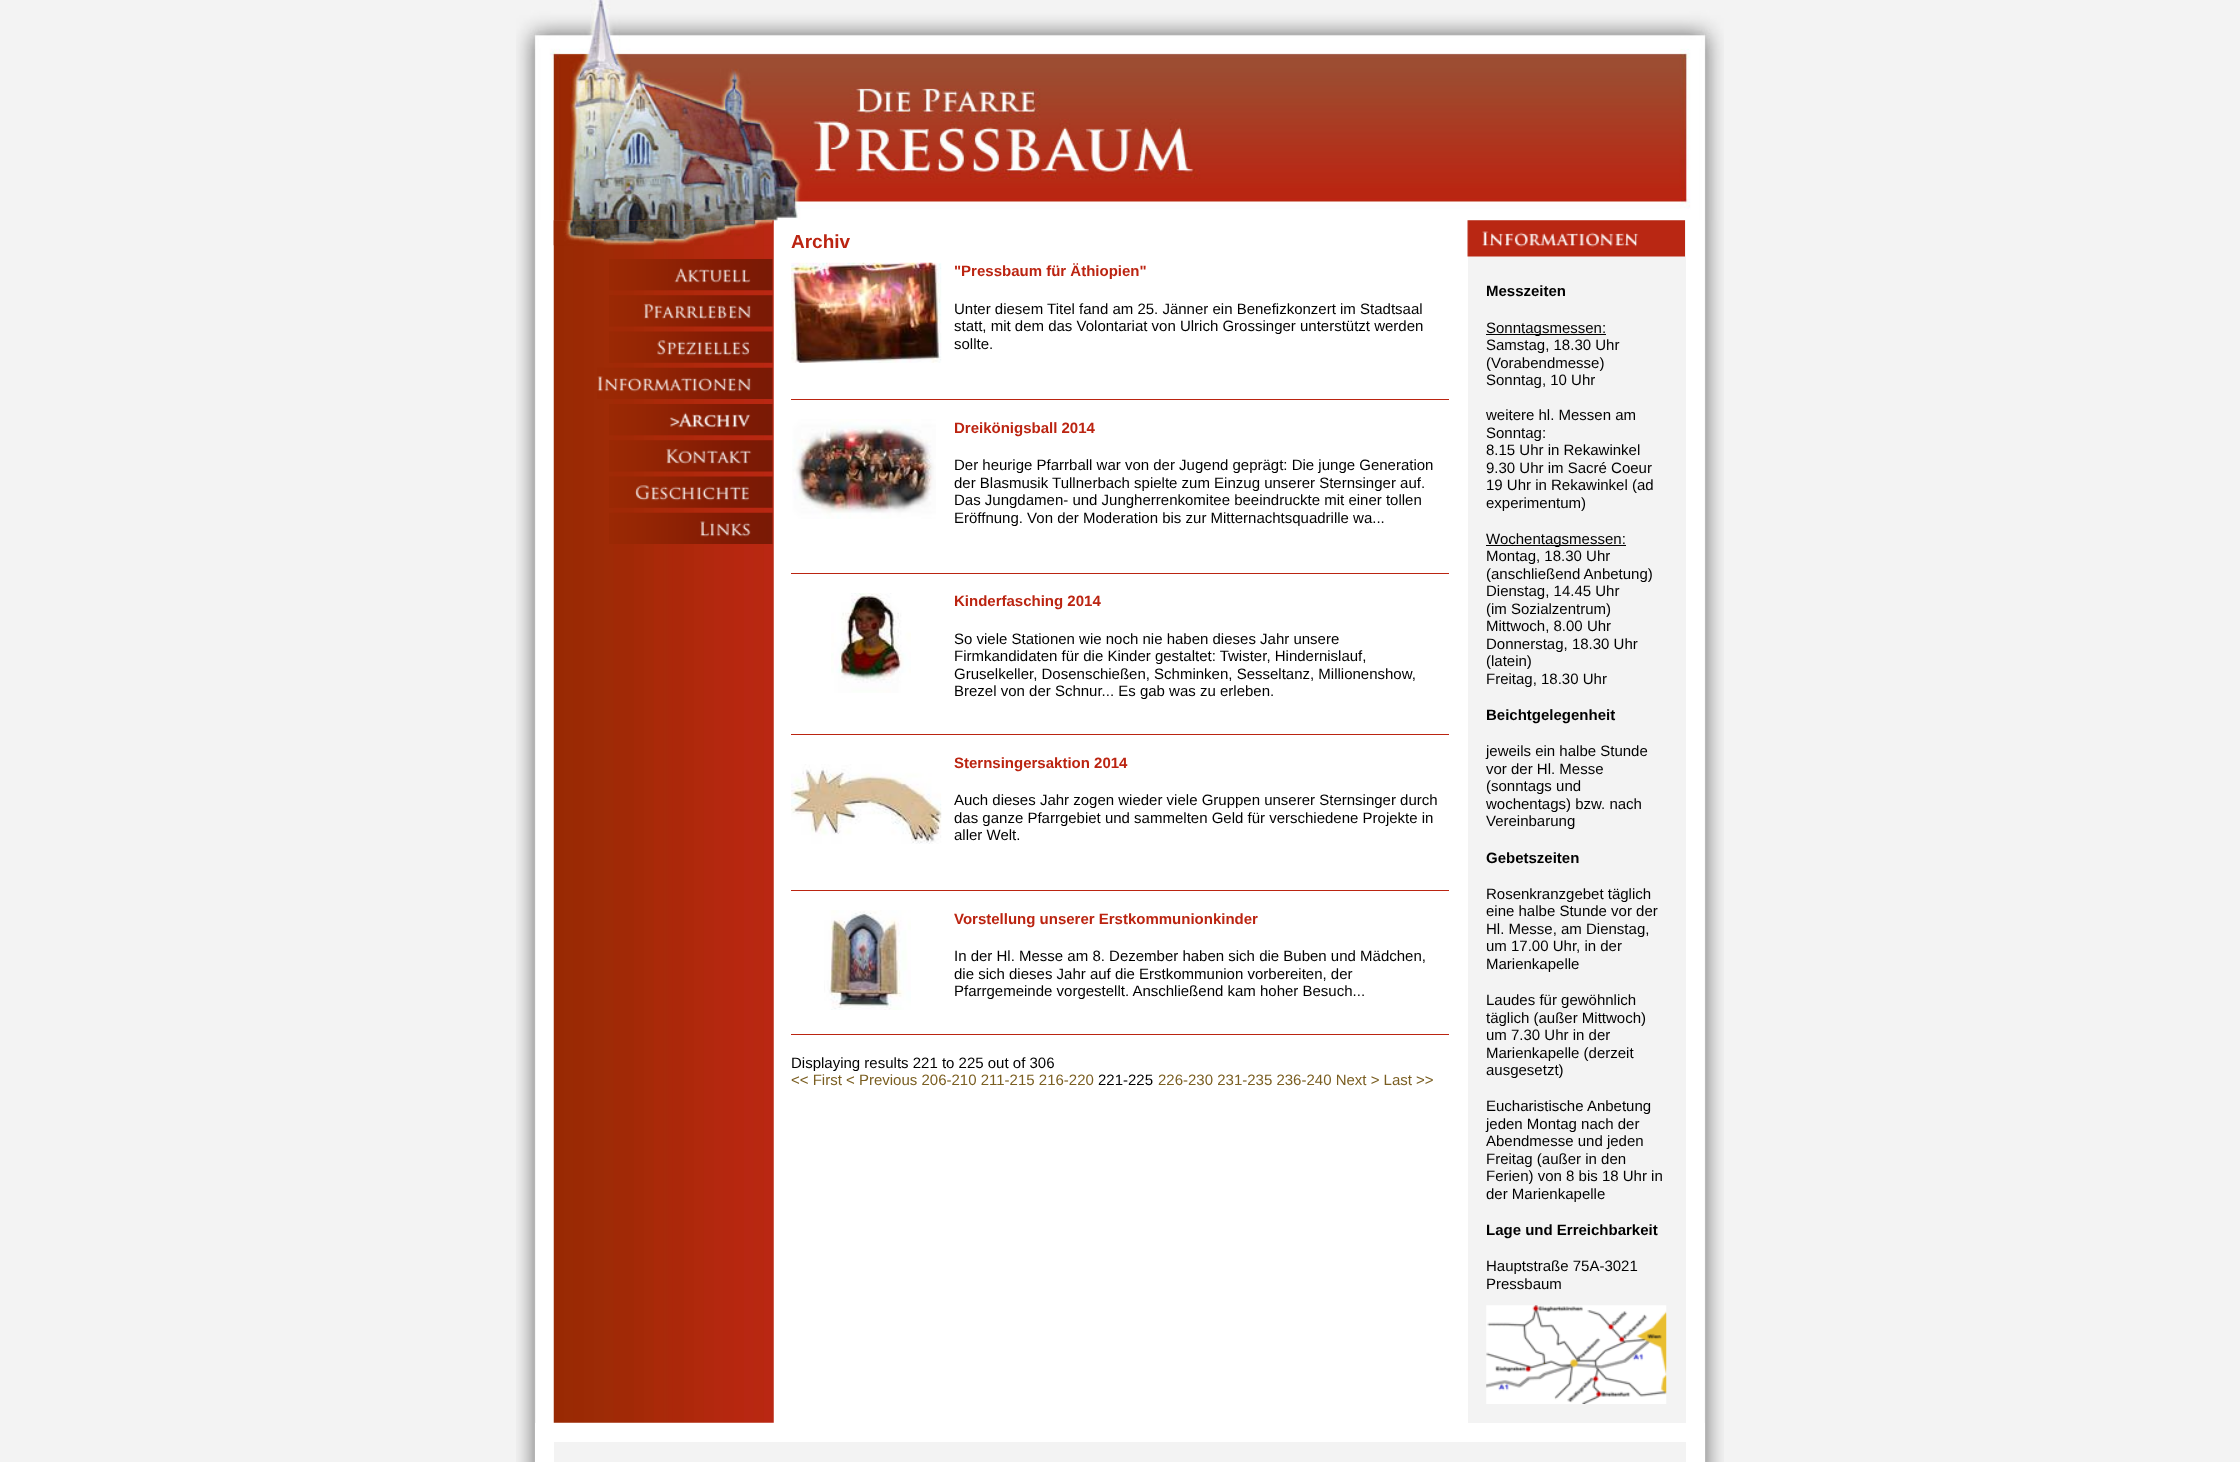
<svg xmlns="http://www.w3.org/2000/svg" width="2240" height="1462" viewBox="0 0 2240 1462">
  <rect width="100%" height="100%" fill="rgb(243,243,243)"/>
  <image x="516" y="220" width="1208" height="1242" href="pic1.png"/>
  <image x="516" y="0" width="1208" height="221" href="pic2.png"/>
  <image x="553" y="220" width="221" height="1203" href="pic3.png"/>
  <image x="553" y="220" width="220" height="26" href="pic4.png"/>
  <image x="609" y="259" width="164" height="32" href="pic5.png"/>
  <image x="609" y="295" width="164" height="32" href="pic6.png"/>
  <image x="609" y="331" width="164" height="32" href="pic7.png"/>
  <image x="597" y="367" width="176" height="32" href="pic8.png"/>
  <image x="609" y="404" width="164" height="32" href="pic9.png"/>
  <image x="609" y="440" width="164" height="32" href="pic10.png"/>
  <image x="609" y="476" width="164" height="32" href="pic11.png"/>
  <image x="609" y="512" width="164" height="32" href="pic12.png"/>
  <text x="791" y="248" font-family="Liberation Sans" font-size="19" font-weight="bold" fill="rgb(187,36,17)">Archiv</text>
  <image x="791" y="262" width="151" height="101" href="pic13.png"/>
  <text x="954" y="276" font-family="Liberation Sans" font-size="15" font-weight="bold" fill="rgb(187,36,17)">"Pressbaum für Äthiopien"</text>
  <g font-family="Liberation Sans" font-size="15" fill="rgb(0,0,0)">
    <text>
      <tspan x="954" y="314">Unter diesem Titel fand am 25. Jänner ein Benefizkonzert im Stadtsaal</tspan>
      <tspan x="954" y="331">statt, mit dem das Volontariat von Ulrich Grossinger unterstützt werden</tspan>
      <tspan x="954" y="349">sollte.</tspan>
    </text>
  </g>
  <rect x="791" y="399" width="658" height="1" fill="rgb(187,36,17)"/>
  <image x="792" y="419" width="144" height="100" href="pic14.png"/>
  <text x="954" y="433" font-family="Liberation Sans" font-size="15" font-weight="bold" fill="rgb(187,36,17)">Dreikönigsball 2014</text>
  <g font-family="Liberation Sans" font-size="15" fill="rgb(0,0,0)">
    <text>
      <tspan x="954" y="470">Der heurige Pfarrball war von der Jugend geprägt: Die junge Generation</tspan>
      <tspan x="954" y="488">der Blasmusik Tullnerbach spielte zum Einzug unserer Sternsinger auf.</tspan>
      <tspan x="954" y="505">Das Jungdamen- und Jungherrenkomitee beeindruckte mit einer tollen</tspan>
      <tspan x="954" y="523">Eröffnung. Von der Moderation bis zur Mitternachtsquadrille wa...</tspan>
    </text>
  </g>
  <rect x="791" y="573" width="658" height="1" fill="rgb(187,36,17)"/>
  <image x="831" y="593" width="80" height="100" href="pic15.png"/>
  <text x="954" y="606" font-family="Liberation Sans" font-size="15" font-weight="bold" fill="rgb(187,36,17)">Kinderfasching 2014</text>
  <g font-family="Liberation Sans" font-size="15" fill="rgb(0,0,0)">
    <text>
      <tspan x="954" y="644">So viele Stationen wie noch nie haben dieses Jahr unsere</tspan>
      <tspan x="954" y="661">Firmkandidaten für die Kinder gestaltet: Twister, Hindernislauf,</tspan>
      <tspan x="954" y="679">Gruselkeller, Dosenschießen, Schminken, Sesseltanz, Millionenshow,</tspan>
      <tspan x="954" y="696">Brezel von der Schnur... Es gab was zu erleben.</tspan>
    </text>
  </g>
  <rect x="791" y="734" width="658" height="1" fill="rgb(187,36,17)"/>
  <image x="791" y="764" width="151" height="80" href="pic16.png"/>
  <text x="954" y="768" font-family="Liberation Sans" font-size="15" font-weight="bold" fill="rgb(187,36,17)">Sternsingersaktion 2014</text>
  <g font-family="Liberation Sans" font-size="15" fill="rgb(0,0,0)">
    <text>
      <tspan x="954" y="805">Auch dieses Jahr zogen wieder viele Gruppen unserer Sternsinger durch</tspan>
      <tspan x="954" y="823">das ganze Pfarrgebiet und sammelten Geld für verschiedene Projekte in</tspan>
      <tspan x="954" y="840">aller Welt.</tspan>
    </text>
  </g>
  <rect x="791" y="890" width="658" height="1" fill="rgb(187,36,17)"/>
  <image x="824" y="910" width="87" height="100" href="pic17.png"/>
  <text x="954" y="924" font-family="Liberation Sans" font-size="15" font-weight="bold" fill="rgb(187,36,17)">Vorstellung unserer Erstkommunionkinder</text>
  <g font-family="Liberation Sans" font-size="15" fill="rgb(0,0,0)">
    <text>
      <tspan x="954" y="961">In der Hl. Messe am 8. Dezember haben sich die Buben und Mädchen,</tspan>
      <tspan x="954" y="979">die sich dieses Jahr auf die Erstkommunion vorbereiten, der</tspan>
      <tspan x="954" y="996">Pfarrgemeinde vorgestellt. Anschließend kam hoher Besuch...</tspan>
    </text>
  </g>
  <rect x="791" y="1034" width="658" height="1" fill="rgb(187,36,17)"/>
  <text x="791" y="1068" font-family="Liberation Sans" font-size="15" fill="rgb(0,0,0)">Displaying results 221 to 225 out of 306</text>
  <text x="791" y="1085" font-family="Liberation Sans" font-size="15" fill="rgb(122,94,33)">&lt;&lt; First &lt; Previous 206-210 211-215 216-220</text>
  <text x="1098" y="1085" font-family="Liberation Sans" font-size="15" fill="rgb(0,0,0)">221-225</text>
  <text x="1158" y="1085" font-family="Liberation Sans" font-size="15" fill="rgb(122,94,33)">226-230 231-235 236-240 Next &gt; Last &gt;&gt;</text>
  <rect x="1468" y="220" width="218" height="1203" fill="rgb(243,243,243)"/>
  <image x="1467" y="220" width="218" height="37" href="pic18.png"/>
  <text x="1486" y="296" font-family="Liberation Sans" font-size="15" font-weight="bold" fill="rgb(0,0,0)">Messzeiten</text>
  <rect x="1486" y="334" width="120" height="1" fill="rgb(0,0,0)"/>
  <g font-family="Liberation Sans" font-size="15" fill="rgb(0,0,0)">
    <text>
      <tspan x="1486" y="333">Sonntagsmessen:</tspan>
      <tspan x="1486" y="350">Samstag, 18.30 Uhr</tspan>
      <tspan x="1486" y="368">(Vorabendmesse)</tspan>
      <tspan x="1486" y="385">Sonntag, 10 Uhr</tspan>
    </text>
    <text>
      <tspan x="1486" y="420">weitere hl. Messen am</tspan>
      <tspan x="1486" y="438">Sonntag:</tspan>
      <tspan x="1486" y="455">8.15 Uhr in Rekawinkel</tspan>
      <tspan x="1486" y="473">9.30 Uhr im Sacré Coeur</tspan>
      <tspan x="1486" y="490">19 Uhr in Rekawinkel (ad</tspan>
      <tspan x="1486" y="508">experimentum)</tspan>
    </text>
  </g>
  <rect x="1486" y="545" width="140" height="1" fill="rgb(0,0,0)"/>
  <g font-family="Liberation Sans" font-size="15" fill="rgb(0,0,0)">
    <text>
      <tspan x="1486" y="544">Wochentagsmessen:</tspan>
      <tspan x="1486" y="561">Montag, 18.30 Uhr</tspan>
      <tspan x="1486" y="579">(anschließend Anbetung)</tspan>
      <tspan x="1486" y="596">Dienstag, 14.45 Uhr</tspan>
      <tspan x="1486" y="614">(im Sozialzentrum)</tspan>
      <tspan x="1486" y="631">Mittwoch, 8.00 Uhr</tspan>
      <tspan x="1486" y="649">Donnerstag, 18.30 Uhr</tspan>
      <tspan x="1486" y="666">(latein)</tspan>
      <tspan x="1486" y="684">Freitag, 18.30 Uhr</tspan>
    </text>
  </g>
  <text x="1486" y="720" font-family="Liberation Sans" font-size="15" font-weight="bold" fill="rgb(0,0,0)">Beichtgelegenheit</text>
  <g font-family="Liberation Sans" font-size="15" fill="rgb(0,0,0)">
    <text>
      <tspan x="1486" y="756">jeweils ein halbe Stunde</tspan>
      <tspan x="1486" y="774">vor der Hl. Messe</tspan>
      <tspan x="1486" y="791">(sonntags und</tspan>
      <tspan x="1486" y="809">wochentags) bzw. nach</tspan>
      <tspan x="1486" y="826">Vereinbarung</tspan>
    </text>
  </g>
  <text x="1486" y="863" font-family="Liberation Sans" font-size="15" font-weight="bold" fill="rgb(0,0,0)">Gebetszeiten</text>
  <g font-family="Liberation Sans" font-size="15" fill="rgb(0,0,0)">
    <text>
      <tspan x="1486" y="899">Rosenkranzgebet täglich</tspan>
      <tspan x="1486" y="916">eine halbe Stunde vor der</tspan>
      <tspan x="1486" y="934">Hl. Messe, am Dienstag,</tspan>
      <tspan x="1486" y="951">um 17.00 Uhr, in der</tspan>
      <tspan x="1486" y="969">Marienkapelle</tspan>
    </text>
    <text>
      <tspan x="1486" y="1005">Laudes für gewöhnlich</tspan>
      <tspan x="1486" y="1023">täglich (außer Mittwoch)</tspan>
      <tspan x="1486" y="1040">um 7.30 Uhr in der</tspan>
      <tspan x="1486" y="1058">Marienkapelle (derzeit</tspan>
      <tspan x="1486" y="1075">ausgesetzt)</tspan>
    </text>
    <text>
      <tspan x="1486" y="1111">Eucharistische Anbetung</tspan>
      <tspan x="1486" y="1129">jeden Montag nach der</tspan>
      <tspan x="1486" y="1146">Abendmesse und jeden</tspan>
      <tspan x="1486" y="1164">Freitag (außer in den</tspan>
      <tspan x="1486" y="1181">Ferien) von 8 bis 18 Uhr in</tspan>
      <tspan x="1486" y="1199">der Marienkapelle</tspan>
    </text>
  </g>
  <text x="1486" y="1235" font-family="Liberation Sans" font-size="15" font-weight="bold" fill="rgb(0,0,0)">Lage und Erreichbarkeit</text>
  <g font-family="Liberation Sans" font-size="15" fill="rgb(0,0,0)">
    <text>
      <tspan x="1486" y="1271">Hauptstraße 75A-3021</tspan>
      <tspan x="1486" y="1289">Pressbaum</tspan>
    </text>
  </g>
  <image x="1486" y="1305" width="181" height="99" href="pic19.png"/>
  <rect x="544.5" y="1432.5" width="1151" height="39" fill="rgb(243,243,243)" stroke="rgb(255,255,255)" stroke-width="19"/>
</svg>
